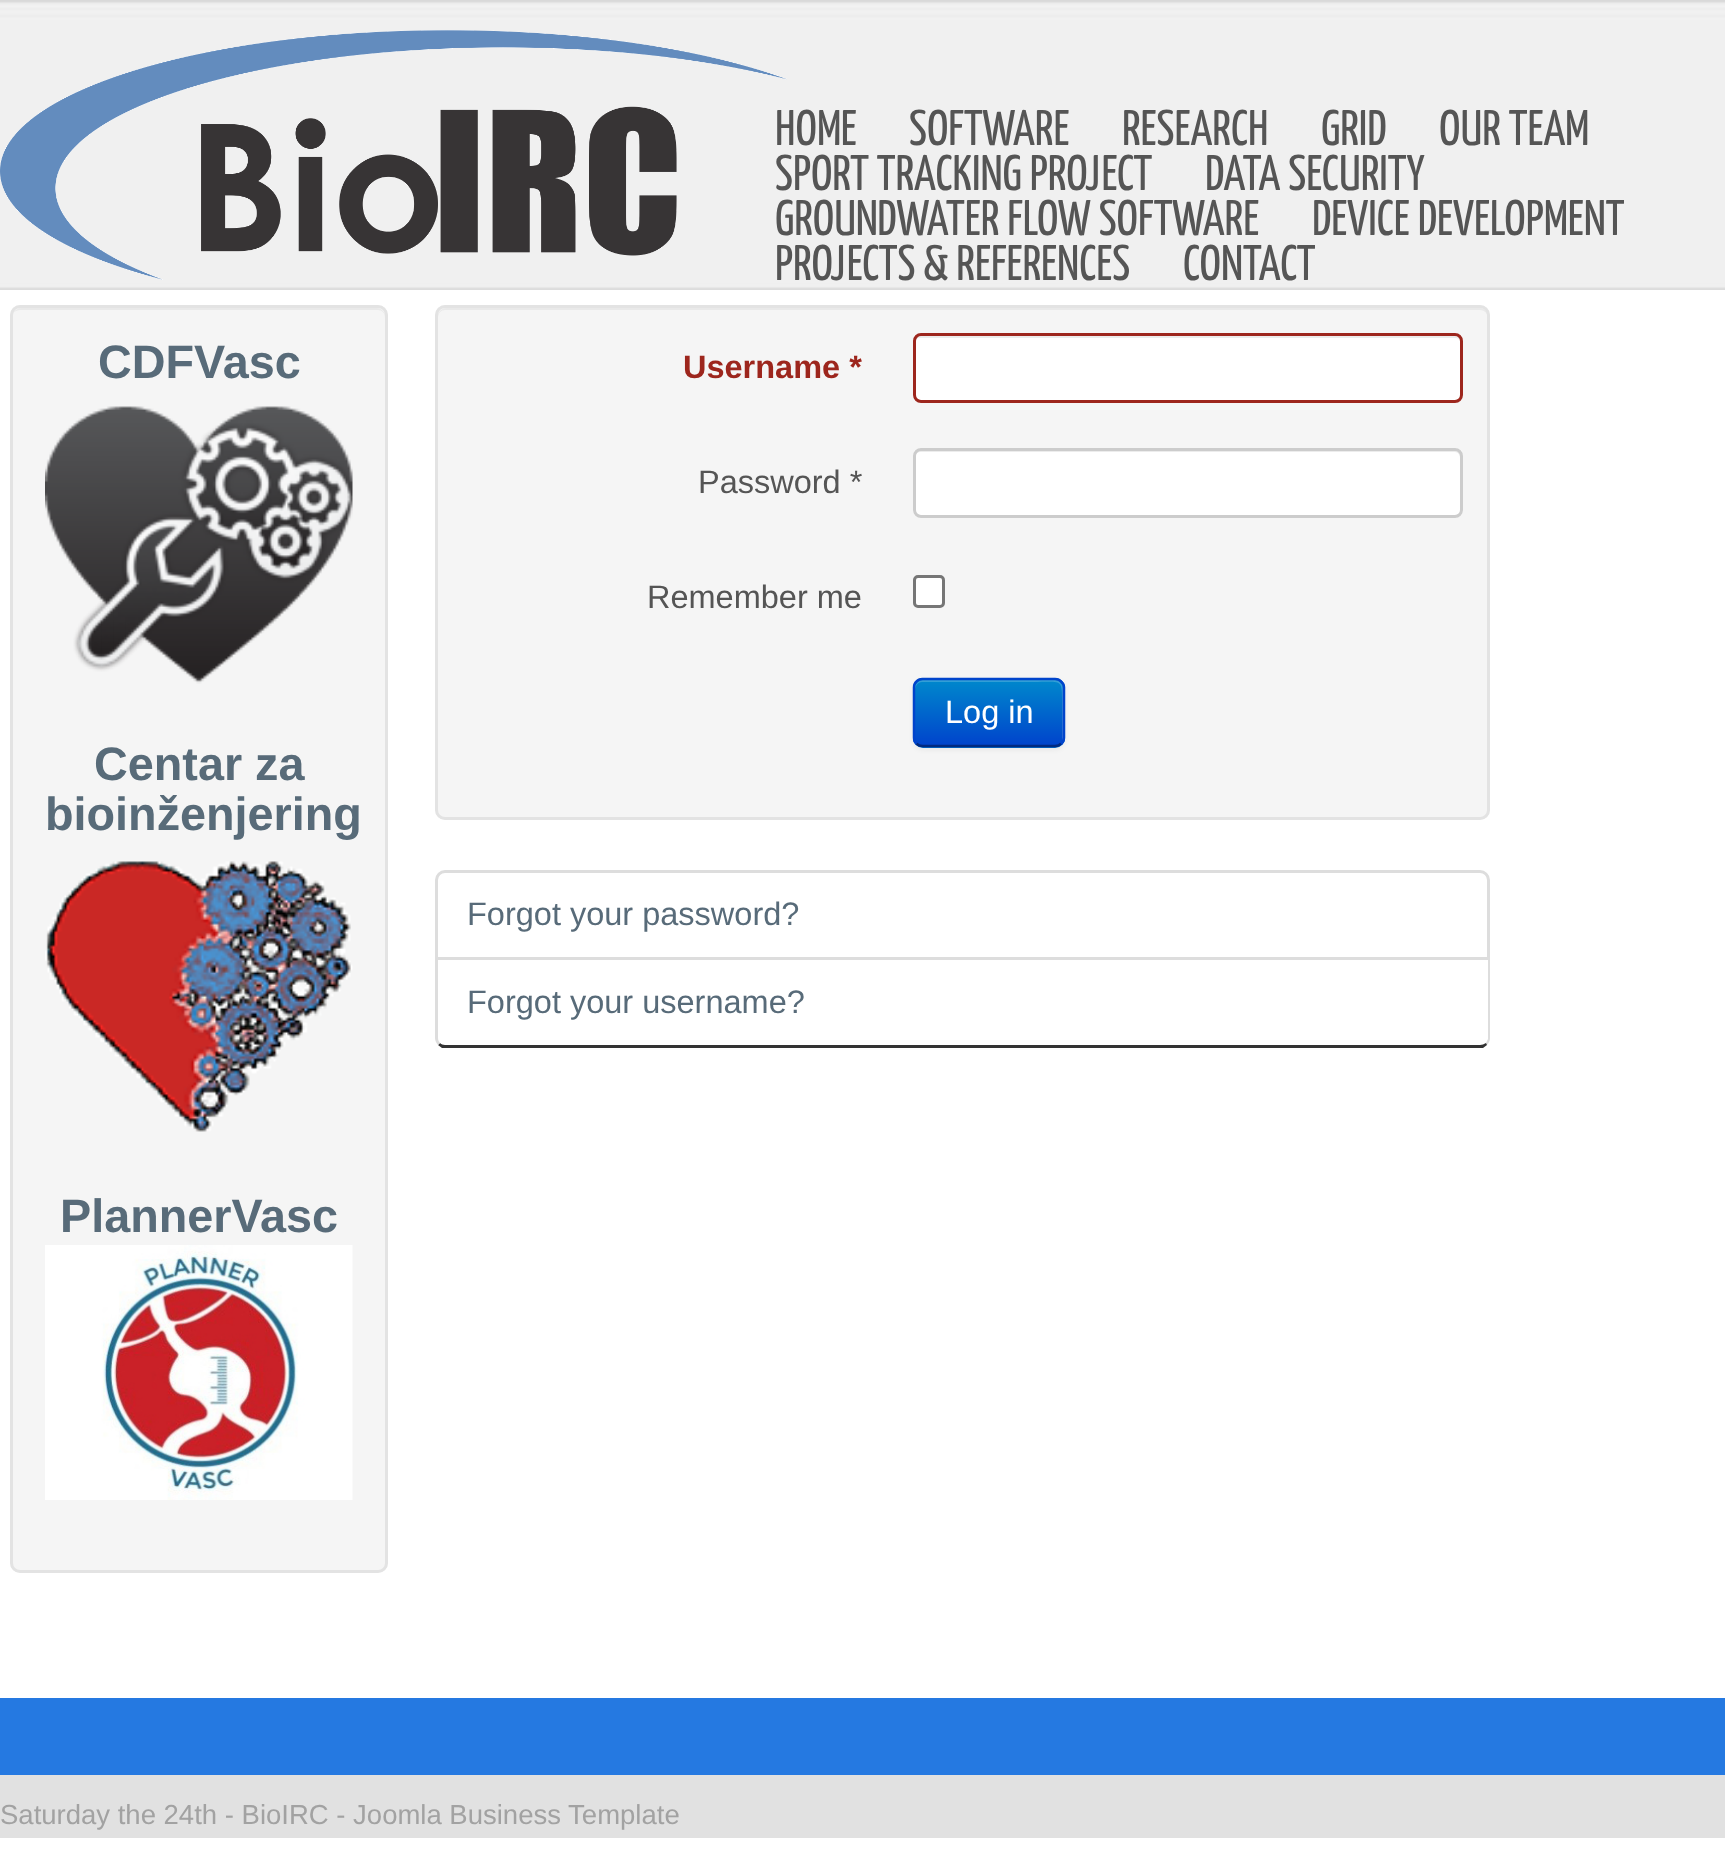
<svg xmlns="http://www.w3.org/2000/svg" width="1725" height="1857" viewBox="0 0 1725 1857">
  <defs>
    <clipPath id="clip1"><rect x="913" y="678" width="152" height="70" rx="10"/></clipPath>
    <linearGradient id="g1" gradientUnits="userSpaceOnUse" x1="989" y1="680" x2="989" y2="745"><stop offset="0" stop-color="rgb(0,136,204)"/><stop offset="1" stop-color="rgb(0,68,204)"/></linearGradient>
  </defs>
  <rect width="100%" height="100%" fill="rgb(255,255,255)"/>
  <image x="0" y="0" width="1725" height="290" href="pic1.png"/>
  <image x="0" y="30" width="787" height="250" href="pic2.png"/>
  <g font-family="Yanone Kaffeesatz" font-size="50" font-weight="200" fill="rgb(85,85,85)">
    <text x="775" y="145">HOME</text>
    <text x="909" y="145">SOFTWARE</text>
    <text x="1122" y="145">RESEARCH</text>
    <text x="1321" y="145">GRID</text>
    <text x="1439" y="145">OUR TEAM</text>
    <text x="775" y="190">SPORT TRACKING PROJECT</text>
    <text x="1205" y="190">DATA SECURITY</text>
    <text x="775" y="235">GROUNDWATER FLOW SOFTWARE</text>
    <text x="1312" y="235">DEVICE DEVELOPMENT</text>
    <text x="775" y="280">PROJECTS &amp; REFERENCES</text>
    <text x="1183" y="280">CONTACT</text>
  </g>
  <rect x="10" y="305" width="378" height="1268" rx="10" fill="rgb(245,245,245)"/>
  <path d="M20 310H378C382 310 385 313 385 318V316C385 312 381 308 377 308H21C18 308 15 310 13 313C15 311 18 310 20 310Z" fill="rgb(233,233,233)"/>
  <rect x="11.5" y="306.5" width="375" height="1265" rx="8.5" fill="none" stroke="rgb(227,227,227)" stroke-width="3"/>
  <text x="98" y="378" font-family="Liberation Sans" font-size="46.75" font-weight="bold" fill="rgb(88,107,121)">CDFVasc</text>
  <image x="45" y="406" width="308" height="278" href="pic3.png"/>
  <g font-family="Liberation Sans" font-size="46.75" font-weight="bold" fill="rgb(88,107,121)">
    <text x="94" y="780">Centar za</text>
    <text x="45" y="830">bioinženjering</text>
  </g>
  <image x="45" y="861" width="308" height="271" href="pic4.png"/>
  <text x="60" y="1232" font-family="Liberation Sans" font-size="46.75" font-weight="bold" fill="rgb(88,107,121)">PlannerVasc</text>
  <image x="45" y="1245" width="308" height="255" href="pic5.png"/>
  <rect x="435" y="305" width="1055" height="515" rx="10" fill="rgb(245,245,245)"/>
  <path d="M445 310H1480C1484 310 1488 313 1488 318V316C1488 312 1484 308 1480 308H446C442 308 438 312 438 316V318C438 313 441 310 445 310Z" fill="rgb(233,233,233)"/>
  <rect x="436.5" y="306.5" width="1052" height="512" rx="8.5" fill="none" stroke="rgb(227,227,227)" stroke-width="3"/>
  <text x="683" y="378" font-family="Liberation Sans" font-size="32.5" font-weight="bold" fill="rgb(157,38,29)">Username *</text>
  <rect x="913" y="333" width="550" height="70" rx="8" fill="rgb(255,255,255)"/>
  <path d="M920 338H1455C1458 338 1460 340 1460 342C1460 339 1459 335 1455 335H920C916 335 915 339 915 342C915 340 917 338 920 338Z" fill="rgb(236,236,236)"/>
  <rect x="914.5" y="334.5" width="547" height="67" rx="6.5" fill="none" stroke="rgb(157,38,29)" stroke-width="3"/>
  <text x="698" y="493" font-family="Liberation Sans" font-size="32.5" fill="rgb(85,85,85)">Password *</text>
  <rect x="913" y="448" width="550" height="70" rx="8" fill="rgb(255,255,255)"/>
  <path d="M920 452H1455C1458 452 1460 455 1460 458V455C1460 452 1458 450 1455 450H920C917 450 915 452 915 455V458C915 455 917 452 920 452Z" fill="rgb(236,236,236)"/>
  <rect x="914.5" y="449.5" width="547" height="67" rx="6.5" fill="none" stroke="rgb(204,204,204)" stroke-width="3"/>
  <text x="647" y="608" font-family="Liberation Sans" font-size="32.5" fill="rgb(85,85,85)">Remember me</text>
  <rect x="914.5" y="576.5" width="29" height="30" rx="3.5" fill="rgb(255,255,255)" stroke="rgb(118,118,118)" stroke-width="3"/>
  <rect x="913" y="680" width="152" height="70" rx="10" fill="rgba(0,0,0,0.05)" filter="blur(2.5px)"/>
  <rect x="913" y="678" width="152" height="70" rx="10" fill="rgb(0,109,204)"/>
  <g clip-path="url(#clip1)">
    <rect x="913" y="680" width="152" height="65" fill="url(#g1)"/>
  </g>
  <path d="M922 682H1033C1064 682 1062 678 1062 707V741C1063 740 1063 738 1063 737V688C1063 684 1059 680 1055 680H923C919 680 915 684 915 688V690C915 686 918 682 922 682Z" fill="rgba(255,255,255,0.2)"/>
  <path d="M1061 743.5C1059.5 745.5 1057.5 746 1055 746H922.5C920 746 918 745.5 916.5 743.5" fill="none" stroke="rgb(0,42,128)" stroke-width="2.5"/>
  <path d="M916.5 743.5C914.5 742 914 740 914 737.5V687.5C914 685 914.5 683 916.5 681.5C918 679.5 920 679 922.5 679H1055C1057.5 679 1059.5 679.5 1061 681.5C1063 683 1064 685 1064 687.5V737.5C1064 740 1063 742 1061 743.5" fill="none" stroke="rgb(0,68,204)" stroke-width="2.5"/>
  <text x="945" y="723" font-family="Liberation Sans" font-size="32.5" fill="rgb(255,255,255)">Log in</text>
  <path d="M445 871.5H1480C1484.5 871.5 1488.5 875.5 1488.5 880V958.5H436.5V880C436.5 875.5 440.5 871.5 445 871.5Z" fill="none" stroke="rgb(221,221,221)" stroke-width="3"/>
  <text x="467" y="925" font-family="Liberation Sans" font-size="32.5" fill="rgb(88,107,121)">Forgot your password?</text>
  <path d="M1490 1038V958L1488 960V1039L1486 1043L1487 1045C1489 1043 1490 1040 1490 1038Z" fill="rgb(221,221,221)"/>
  <path d="M442 1048L438 1045L440 1043C441 1044 443 1045 445 1045H1480C1482 1045 1484 1044 1486 1043L1487 1045L1483 1048Z" fill="rgb(51,51,51)"/>
  <path d="M435 958L438 960V1038C438 1040 439 1042 440 1043L438 1045C436 1043 435 1040 435 1038Z" fill="rgb(221,221,221)"/>
  <text x="467" y="1013" font-family="Liberation Sans" font-size="32.5" fill="rgb(88,107,121)">Forgot your username?</text>
  <rect x="0" y="1698" width="1725" height="77" fill="rgb(37,121,225)"/>
  <rect x="0" y="1775" width="1725" height="63" fill="rgb(225,225,225)"/>
  <text x="0" y="1824" font-family="Liberation Sans" font-size="27.5" fill="rgb(162,162,162)">Saturday the 24th - BioIRC - Joomla Business Template</text>
</svg>
